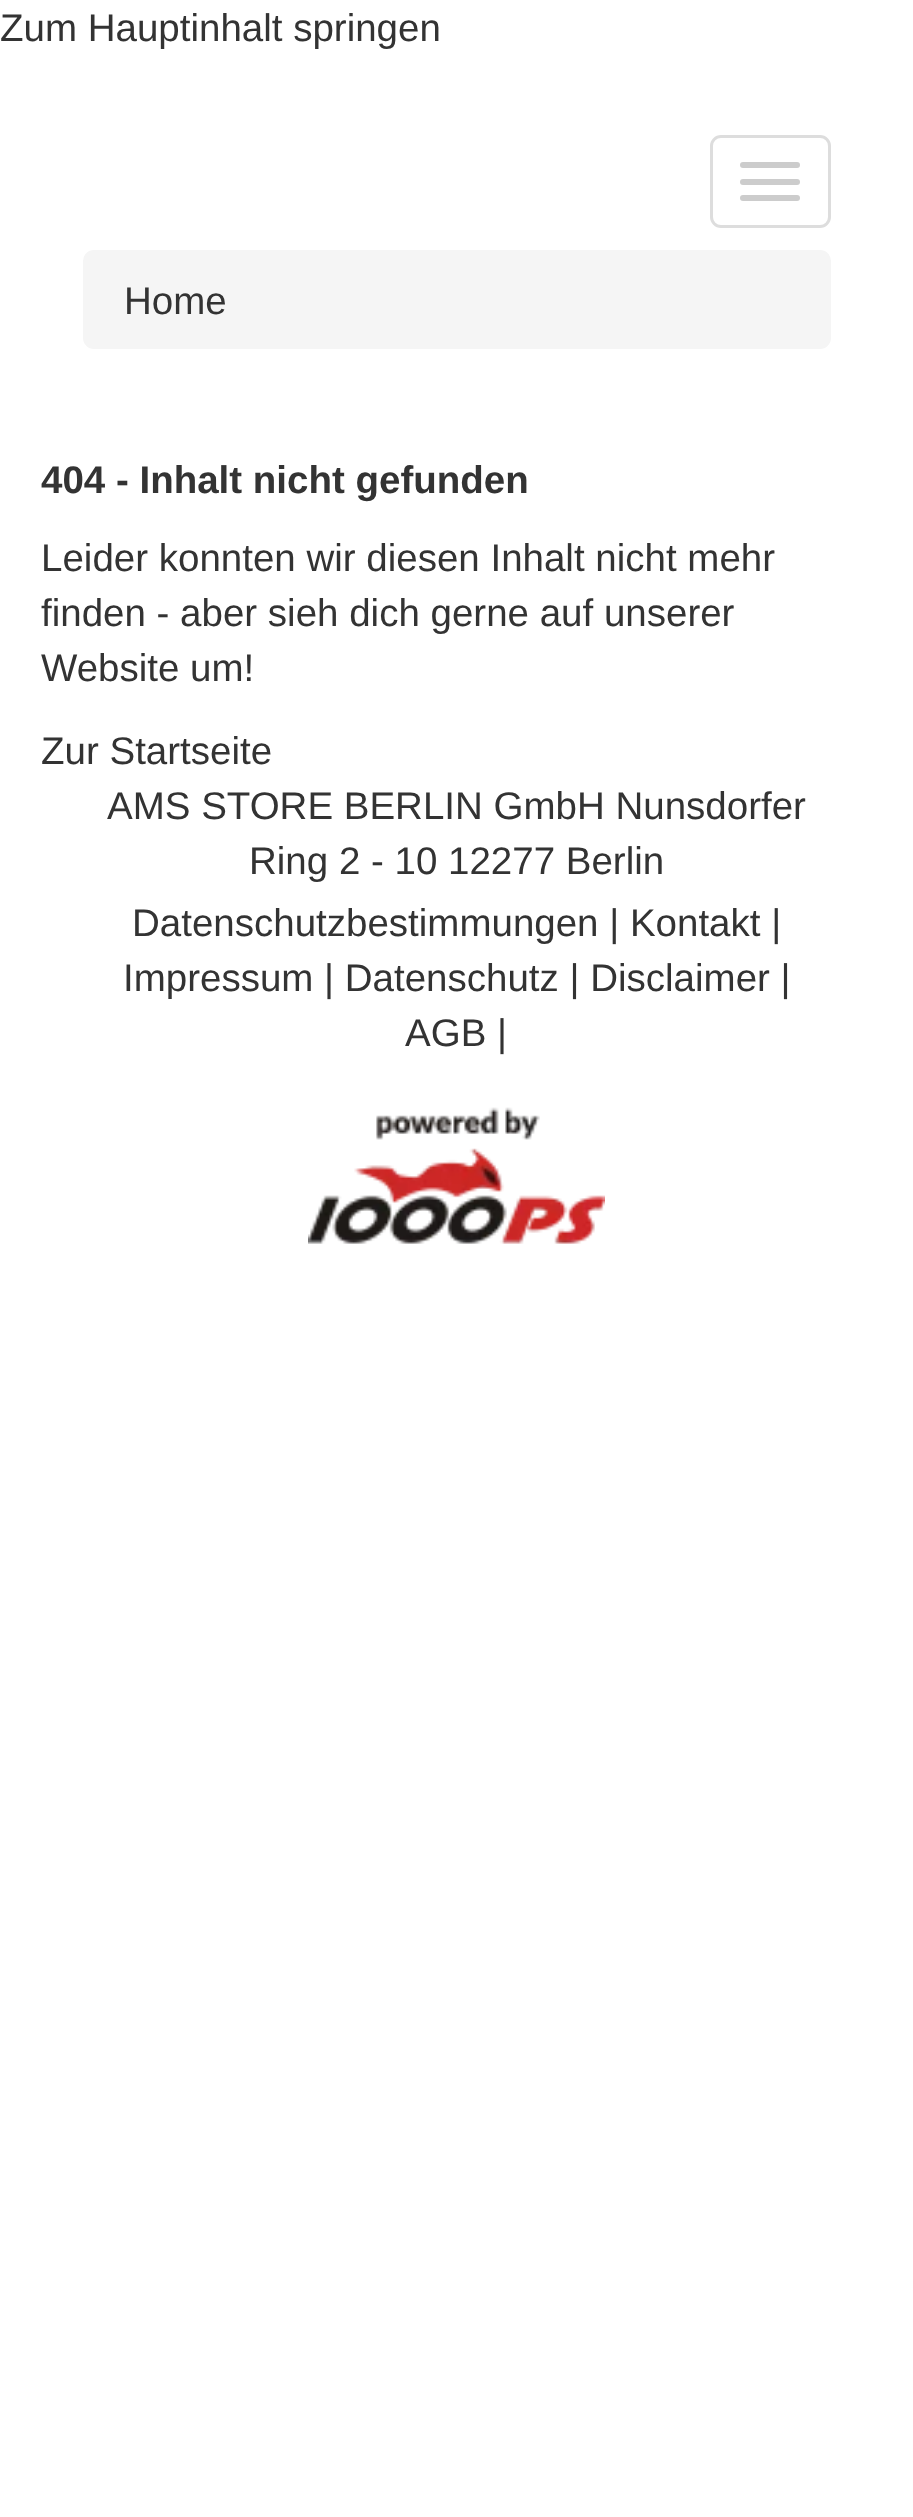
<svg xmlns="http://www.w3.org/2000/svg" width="913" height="2517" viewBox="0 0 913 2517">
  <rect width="100%" height="100%" fill="rgb(255,255,255)"/>
  <text x="0" y="41" font-family="Liberation Sans" font-size="38.5" fill="rgb(51,51,51)">Zum Hauptinhalt springen</text>
  <rect x="711.5" y="136.5" width="118" height="90" rx="9.5" fill="none" stroke="rgb(221,221,221)" stroke-width="3"/>
  <rect x="740" y="162" width="60" height="6" rx="3" fill="rgb(204,204,204)"/>
  <rect x="740" y="179" width="60" height="6" rx="3" fill="rgb(204,204,204)"/>
  <rect x="740" y="195" width="60" height="6" rx="3" fill="rgb(204,204,204)"/>
  <rect x="83" y="250" width="748" height="99" rx="11" fill="rgb(245,245,245)"/>
  <text x="124" y="314" font-family="Liberation Sans" font-size="38.5" fill="rgb(51,51,51)">Home</text>
  <text x="41" y="493" font-family="Liberation Sans" font-size="38.5" font-weight="bold" fill="rgb(51,51,51)">404 - Inhalt nicht gefunden</text>
  <g font-family="Liberation Sans" font-size="38.5" fill="rgb(51,51,51)">
    <text>
      <tspan x="41" y="571">Leider konnten wir diesen Inhalt nicht mehr</tspan>
      <tspan x="41" y="626">finden - aber sieh dich gerne auf unserer</tspan>
      <tspan x="41" y="681">Website um!</tspan>
    </text>
    <text x="41" y="764">Zur Startseite</text>
    <text x="107" y="819">AMS STORE BERLIN GmbH Nunsdorfer</text>
    <text x="249" y="874">Ring 2 - 10 12277 Berlin</text>
    <text x="132" y="936">Datenschutzbestimmungen | Kontakt |</text>
    <text x="123" y="991">Impressum | Datenschutz | Disclaimer |</text>
    <text x="405" y="1046">AGB |</text>
  </g>
  <image x="308" y="1107" width="297" height="137" href="pic1.png"/>
</svg>
